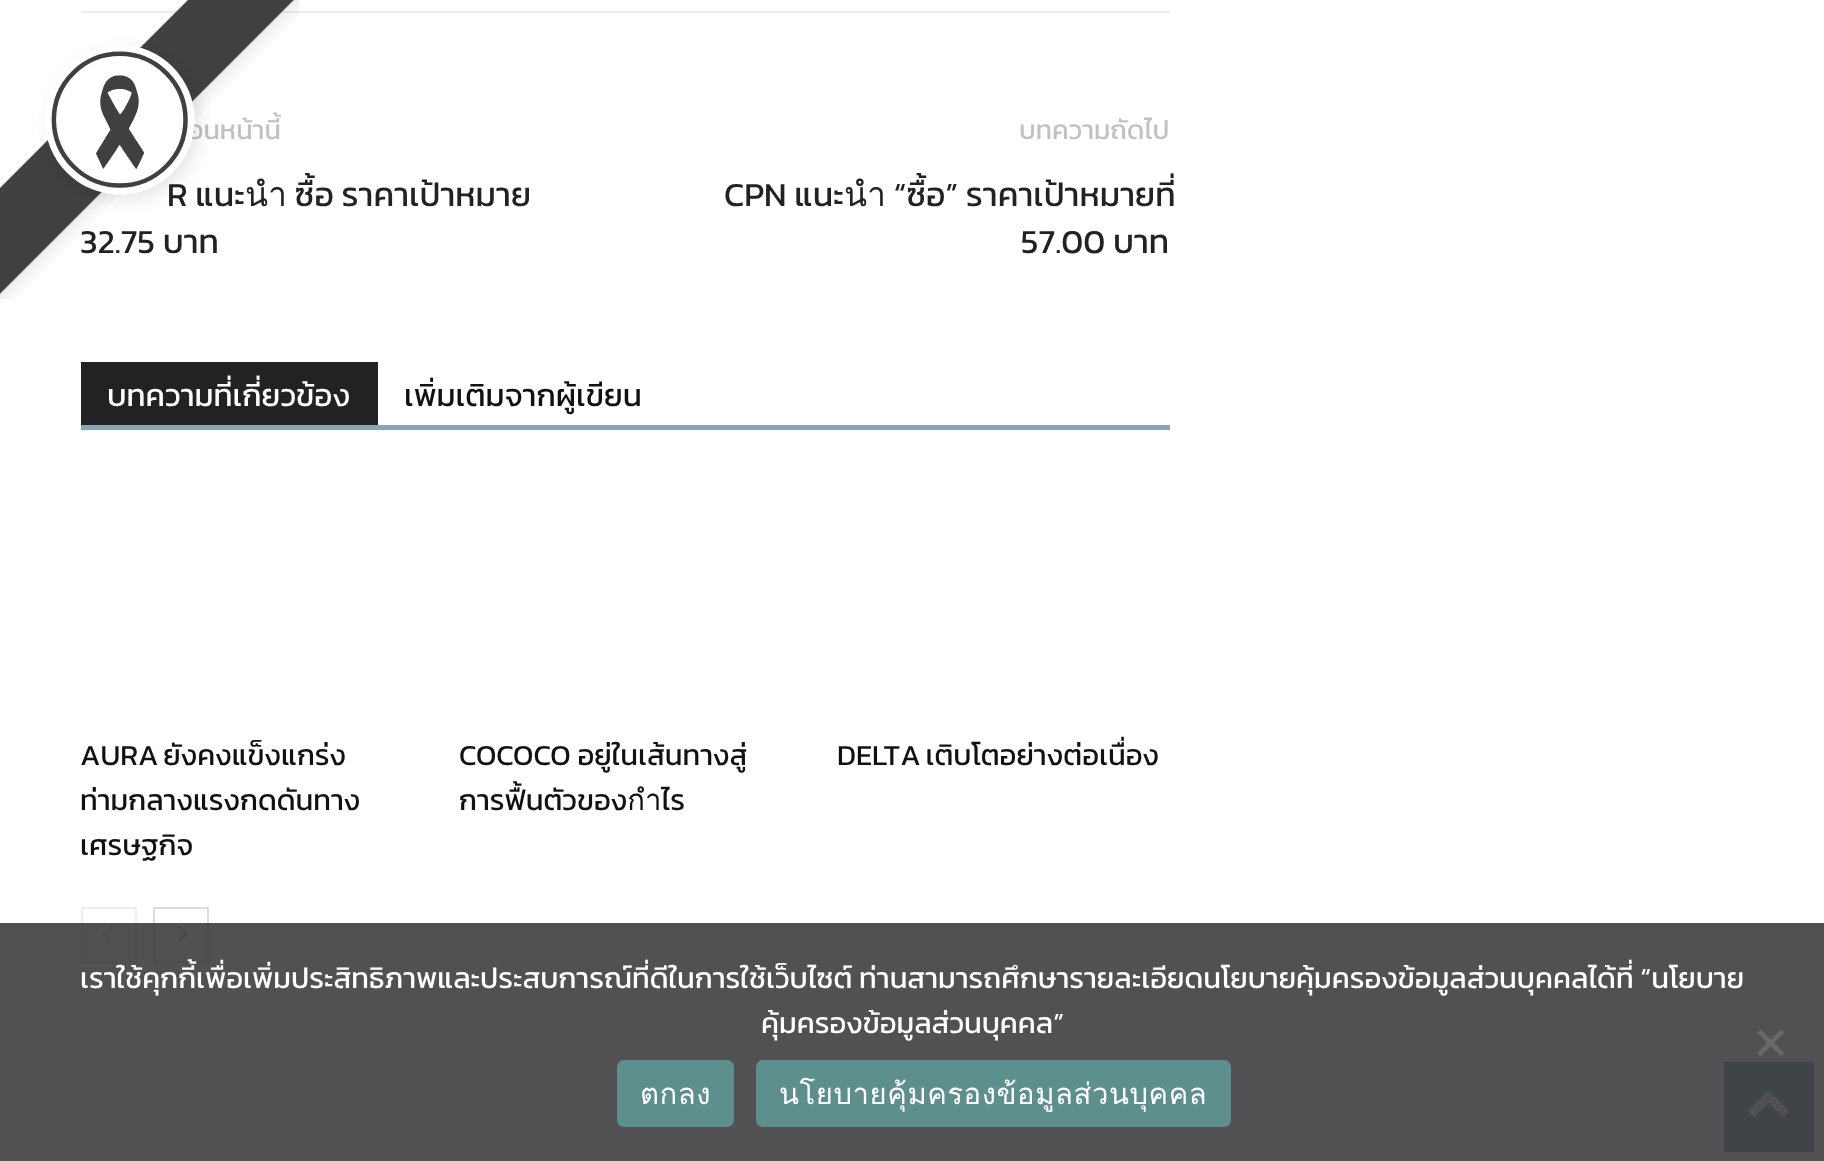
<svg xmlns="http://www.w3.org/2000/svg" width="1824" height="1161" viewBox="0 0 1824 1161">
  <defs>
    <clipPath id="clip1"><rect x="81" y="362" width="1089" height="601"/></clipPath>
  </defs>
  <rect width="100%" height="100%" fill="rgb(255,255,255)"/>
  <rect x="81" y="11" width="1089" height="2" fill="rgb(237,237,237)"/>
  <text x="188" y="139" font-family="Kanit" font-size="27" fill="rgb(193,193,193)">อนหน้านี้</text>
  <g font-family="Kanit" font-size="33.75" fill="rgb(34,34,34)">
    <text x="167" y="206">R แนะนำ ซื้อ ราคาเป้าหมาย</text>
    <text x="80" y="253">32.75 บาท</text>
  </g>
  <image x="0" y="0" width="299" height="299" href="pic1.png"/>
  <text x="1019" y="139" font-family="Kanit" font-size="27" fill="rgb(193,193,193)">บทความถัดไป</text>
  <g font-family="Kanit" font-size="33.75" fill="rgb(34,34,34)">
    <text x="724" y="206">CPN แนะนำ “ซื้อ” ราคาเป้าหมายที่</text>
    <text x="1021" y="253">57.00 บาท</text>
  </g>
  <rect x="81" y="425" width="1089" height="5" fill="rgb(136,166,183)"/>
  <rect x="81" y="362" width="297" height="63" fill="rgb(34,34,34)"/>
  <text x="107" y="406" font-family="Kanit" font-size="31.5" fill="rgb(255,255,255)">บทความที่เกี่ยวข้อง</text>
  <text x="404" y="406" font-family="Kanit" font-size="31.5" fill="rgb(17,17,17)">เพิ่มเติมจากผู้เขียน</text>
  <text x="80" y="765" word-spacing="-2" font-family="Kanit" font-size="29.25" fill="rgb(17,17,17)">AURA ยังคงแข็งแกร่ง</text>
  <g clip-path="url(#clip1)">
    <text x="80" y="810" font-family="Kanit" font-size="29.25" fill="rgb(17,17,17)">ท่ามกลางแรงกดดันทาง</text>
  </g>
  <g font-family="Kanit" font-size="29.25" fill="rgb(17,17,17)">
    <text x="80" y="855">เศรษฐกิจ</text>
    <text>
      <tspan x="459" y="765">COCOCO อยู่ในเส้นทางสู่</tspan>
      <tspan x="459" y="810">การฟื้นตัวของกำไร</tspan>
    </text>
    <text x="837" y="765" word-spacing="-2">DELTA เติบโตอย่างต่อเนื่อง</text>
  </g>
  <rect x="82" y="908" width="54" height="54" fill="none" stroke="rgb(238,238,238)" stroke-width="2"/>
  <image x="102" y="926" width="11" height="16" href="pic2.png"/>
  <rect x="154" y="908" width="54" height="54" fill="none" stroke="rgb(220,220,220)" stroke-width="2"/>
  <image x="177" y="926" width="11" height="16" href="pic3.png"/>
  <rect x="1724" y="1062" width="90" height="90" fill="rgb(136,166,183)"/>
  <image x="1748" y="1090" width="41" height="27" href="pic4.png"/>
  <rect x="0" y="923" width="1824" height="238" fill="rgba(50,50,53,0.85)"/>
  <g font-family="Kanit" font-size="29.25" fill="rgb(255,255,255)">
    <text x="80" y="988">เราใช้คุกกี้เพื่อเพิ่มประสิทธิภาพและประสบการณ์ที่ดีในการใช้เว็บไซต์ ท่านสามารถศึกษารายละเอียดนโยบายคุ้มครองข้อมูลส่วนบุคคลได้ที่ “นโยบาย</text>
    <text x="761" y="1033">คุ้มครองข้อมูลส่วนบุคคล”</text>
  </g>
  <path d="M1781 1029.5L1784.5 1032.5L1760.5 1056.5L1757 1053Z" fill="rgb(104,104,106)"/>
  <path d="M1757 1032.5L1760.5 1029.5L1784.5 1053L1781 1056.5Z" fill="rgb(104,104,106)"/>
  <rect x="617" y="1060" width="117" height="67" rx="7" fill="rgb(93,143,140)"/>
  <text x="640" y="1104" font-family="Loma" font-size="29.25" letter-spacing="0.55" fill="rgb(255,255,255)">ตกลง</text>
  <rect x="756" y="1060" width="475" height="67" rx="7" fill="rgb(93,143,140)"/>
  <text x="779" y="1104" font-family="Loma" font-size="29.25" letter-spacing="0.55" fill="rgb(255,255,255)">นโยบายคุ้มครองข้อมูลส่วนบุคคล</text>
</svg>
